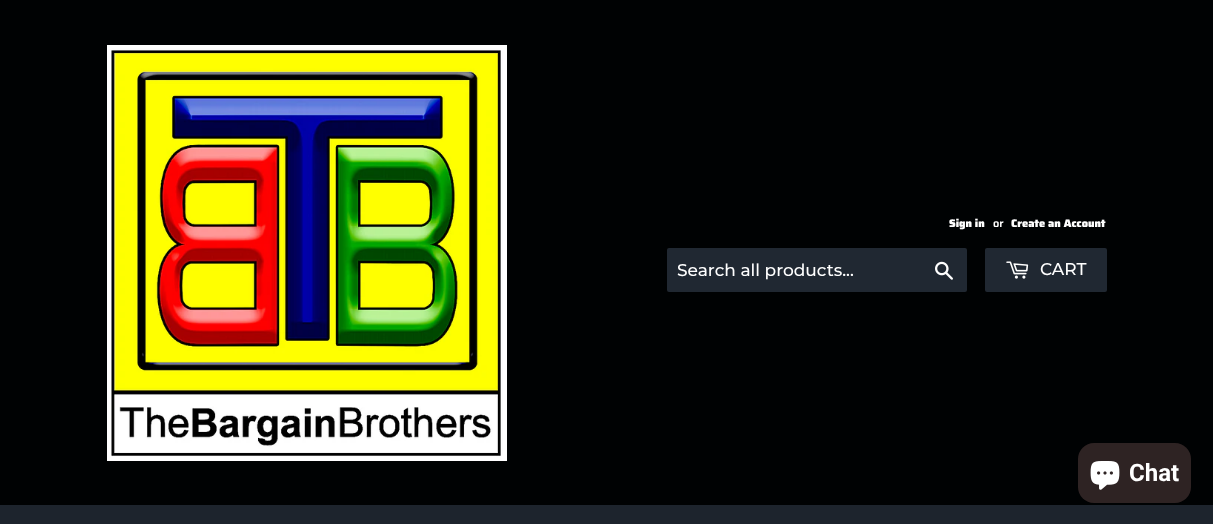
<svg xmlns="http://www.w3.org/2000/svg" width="1213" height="524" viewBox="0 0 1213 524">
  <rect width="100%" height="100%" fill="rgb(0,2,3)"/>
  <image x="107" y="45" width="400" height="416" href="pic1.png"/>
  <text x="949" y="227" font-family="Saira" font-size="11" font-weight="900" fill="rgb(255,255,255)">Sign in</text>
  <text x="993" y="227" font-family="Saira" font-size="11" font-weight="600" fill="rgb(255,255,255)">or</text>
  <text x="1011" y="227" font-family="Saira" font-size="11" font-weight="900" fill="rgb(255,255,255)">Create an Account</text>
  <rect x="667" y="248" width="300" height="44" rx="2" fill="rgb(32,40,50)"/>
  <text x="677" y="276" font-family="Montserrat" font-size="17" font-weight="500" fill="rgb(255,255,255)">Search all products...</text>
  <image x="935" y="261" width="18" height="19" href="pic2.png"/>
  <rect x="985" y="248" width="122" height="44" rx="2" fill="rgb(32,40,50)"/>
  <image x="1006" y="261" width="23" height="18" href="pic3.png"/>
  <text x="1040" y="275" font-family="Montserrat" font-size="17" font-weight="500" fill="rgb(255,255,255)">CART</text>
  <rect x="0" y="505" width="1213" height="19" fill="rgb(29,36,45)"/>
  <rect x="1078" y="443" width="113" height="60" rx="16" fill="rgb(46,35,35)"/>
  <image x="1090" y="461" width="30" height="29" href="pic4.png"/>
  <text x="1129" y="481" font-family="Roboto" font-size="24" font-weight="bold" fill="rgb(255,255,255)">Chat</text>
</svg>
